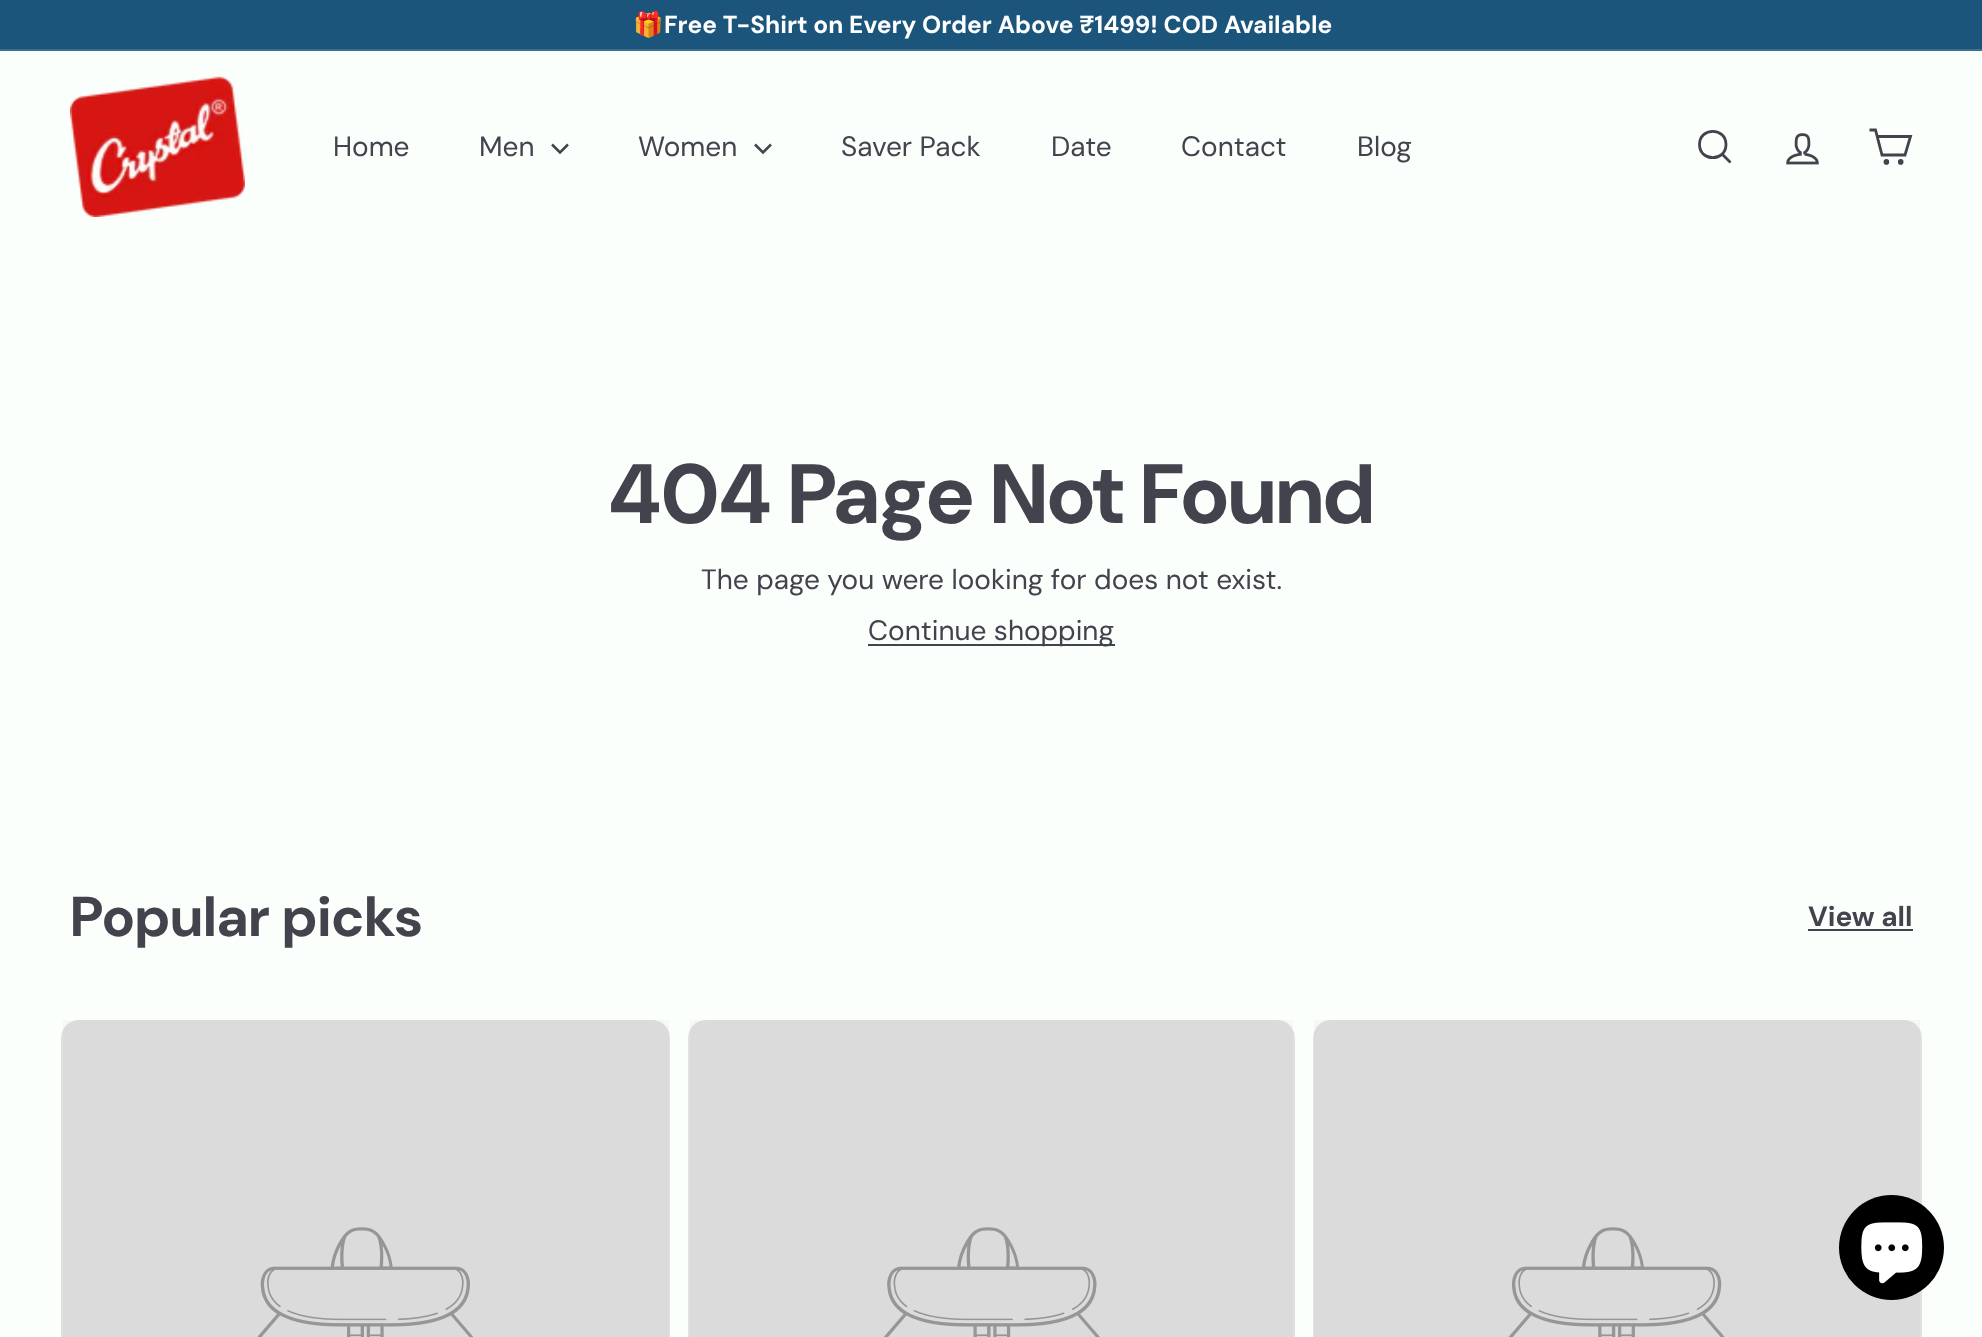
<svg xmlns="http://www.w3.org/2000/svg" width="1982" height="1337" viewBox="0 0 1982 1337">
  <rect width="100%" height="100%" fill="rgb(250,255,252)"/>
  <rect x="0" y="0" width="1982" height="49" fill="rgb(27,85,124)"/>
  <text x="633" y="33" font-family="Noto Color Emoji" font-size="24.5" font-weight="bold" fill="rgb(255,255,255)">🎁</text>
  <text x="664" y="33" font-family="'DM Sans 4'" font-size="24.5" font-weight="bold" fill="rgb(255,255,255)">Free T-Shirt on Every Order Above ₹1499! COD Available</text>
  <rect x="0" y="49" width="1982" height="2" fill="rgb(61,111,144)"/>
  <image x="70" y="76" width="175" height="141" href="pic1.png"/>
  <g font-family="DM Sans" font-size="28" fill="rgb(66,67,77)">
    <text x="333" y="156">Home</text>
    <text x="479" y="156">Men</text>
  </g>
  <path d="M552 144.5L560 152.5L568 144.5" fill="none" stroke="rgb(66,67,77)" stroke-width="2.5"/>
  <text x="638" y="156" font-family="DM Sans" font-size="28" fill="rgb(66,67,77)">Women</text>
  <path d="M755 144.5L763 152.5L771 144.5" fill="none" stroke="rgb(66,67,77)" stroke-width="2.5"/>
  <g font-family="DM Sans" font-size="28" fill="rgb(66,67,77)">
    <text x="841" y="156">Saver Pack</text>
    <text x="1051" y="156">Date</text>
    <text x="1181" y="156">Contact</text>
    <text x="1357" y="156">Blog</text>
  </g>
  <path d="M1726 144.5C1726 162 1699.5 162 1699.5 144.5C1699.5 127 1726 127 1726 144.5M1730.5 162.5L1722 154" fill="none" stroke="rgb(66,67,77)" stroke-width="2.8"/>
  <image x="1786" y="133" width="33" height="32" href="pic2.png"/>
  <path d="M1877 136.5H1910.5L1905 155H1882L1875.5 130H1869.5" fill="none" stroke="rgb(66,67,77)" stroke-width="2.8"/>
  <circle cx="1886.4" cy="161.9" r="1.4" fill="none" stroke="rgb(66,67,77)" stroke-width="2.8"/>
  <circle cx="1900.7" cy="161.9" r="1.4" fill="none" stroke="rgb(66,67,77)" stroke-width="2.8"/>
  <text x="609" y="523" font-family="DM Sans" font-size="84" font-weight="bold" fill="rgb(66,67,77)">404 Page Not Found</text>
  <text x="701" y="589" font-family="DM Sans" font-size="28" fill="rgb(66,67,77)">The page you were looking for does not exist.</text>
  <rect x="868" y="644" width="247" height="2" fill="rgb(66,67,77)"/>
  <text x="868" y="640" font-family="DM Sans" font-size="28" fill="rgb(66,67,77)">Continue shopping</text>
  <text x="70" y="936" font-family="'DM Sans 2'" font-size="56" font-weight="bold" fill="rgb(66,67,77)">Popular picks</text>
  <text x="1808" y="926" font-family="'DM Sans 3'" font-size="28" font-weight="bold" fill="rgb(66,67,77)">View all</text>
  <rect x="1808" y="929" width="105" height="2" fill="rgb(66,67,77)"/>
  <path d="M79 1020H652C662 1020 670 1028 670 1038V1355H61V1038C61 1028 69 1020 79 1020Z" fill="rgb(225,225,225)"/>
  <image x="257" y="1227" width="217" height="110" href="pic3.png"/>
  <rect x="63" y="1020" width="606" height="317" fill="rgba(66,67,77,0.03)"/>
  <path d="M706 1020H1277C1287 1020 1295 1028 1295 1038V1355H688V1038C688 1028 696 1020 706 1020Z" fill="rgb(225,225,225)"/>
  <image x="884" y="1227" width="216" height="110" href="pic4.png"/>
  <rect x="690" y="1020" width="603" height="317" fill="rgba(66,67,77,0.03)"/>
  <path d="M1331 1020H1904C1914 1020 1922 1028 1922 1038V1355H1313V1038C1313 1028 1321 1020 1331 1020Z" fill="rgb(225,225,225)"/>
  <image x="1508" y="1227" width="217" height="110" href="pic5.png"/>
  <rect x="1314" y="1020" width="606" height="317" fill="rgba(66,67,77,0.03)"/>
  <circle cx="1891.5" cy="1247.5" r="52.5" fill="rgb(0,0,0)"/>
  <image x="1861" y="1222" width="62" height="62" href="pic6.png"/>
</svg>
